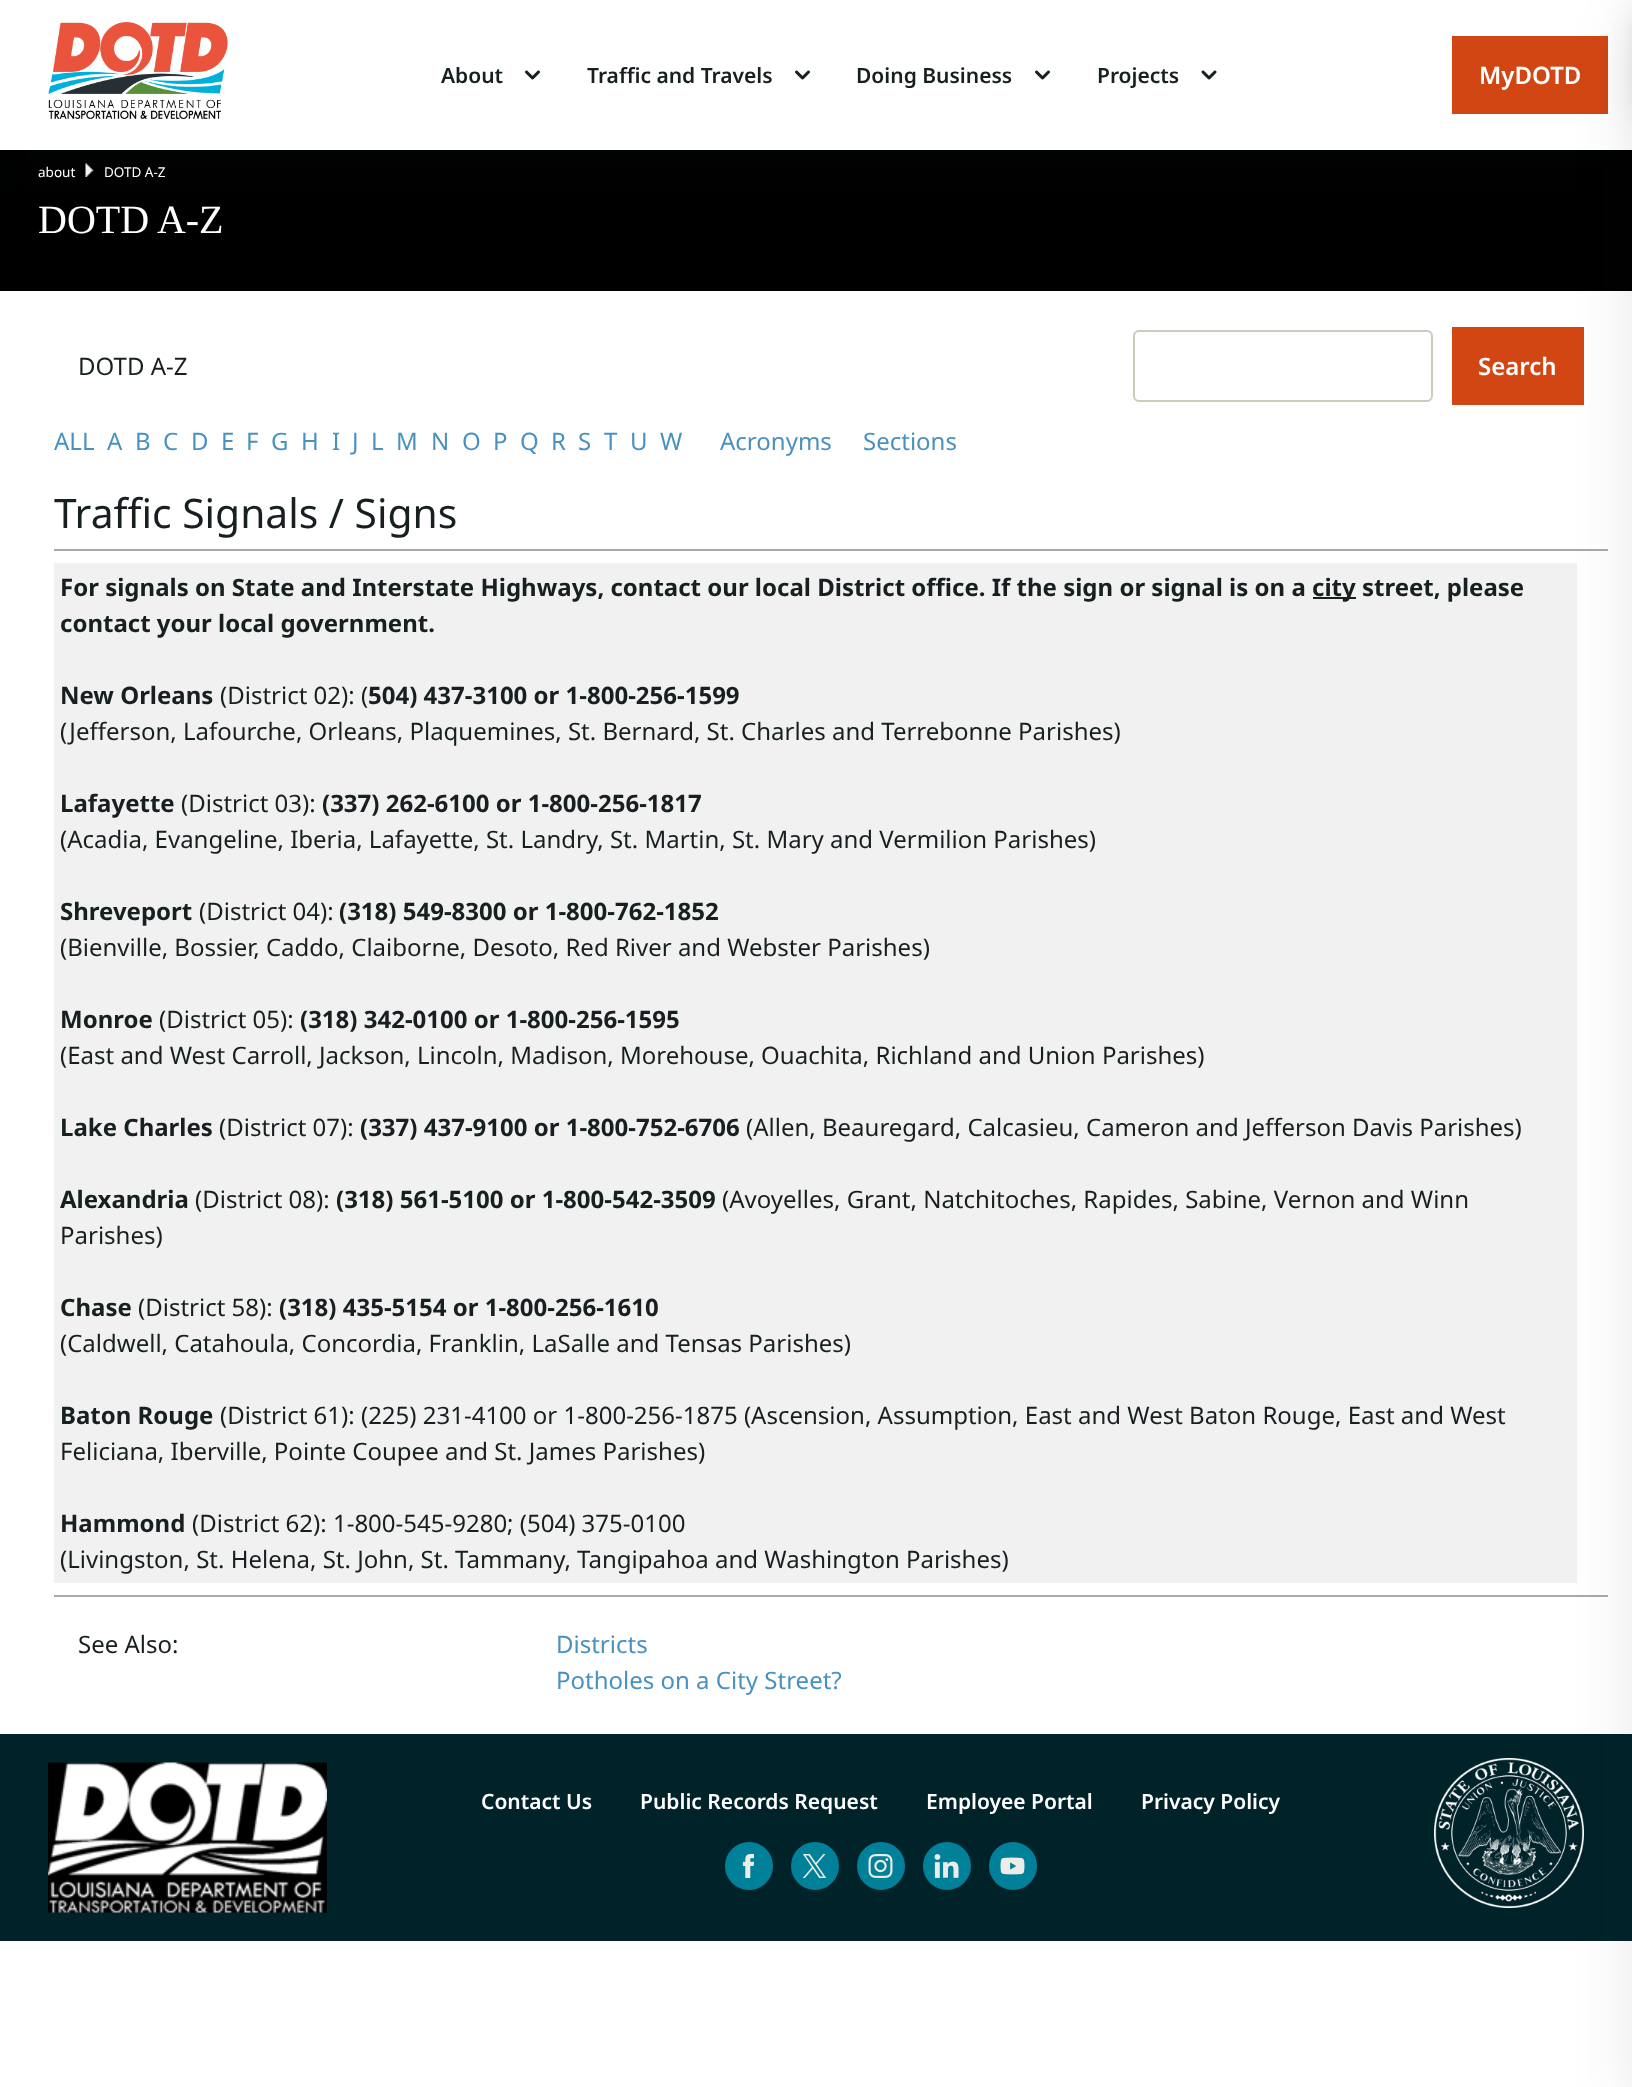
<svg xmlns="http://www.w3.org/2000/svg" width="1632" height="2087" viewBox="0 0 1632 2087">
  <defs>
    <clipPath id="clip1"><rect x="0" y="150" width="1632" height="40"/></clipPath>
  </defs>
  <rect width="100%" height="100%" fill="rgb(255,255,255)"/>
  <rect x="0" y="150" width="1632" height="141" fill="rgb(0,0,0)"/>
  <image x="85" y="163" width="9" height="14" href="pic4.png"/>
  <g clip-path="url(#clip1)">
    <rect x="0" y="15" width="1632" height="150" fill="rgba(24,31,32,0.1)" filter="blur(30px)"/>
  </g>
  <image x="48" y="22" width="180" height="97" href="pic1.png"/>
  <text x="441" y="83" font-family="Noto Sans" font-size="21" font-weight="600" fill="rgb(24,31,32)">About</text>
  <image x="525" y="70" width="15" height="10" href="pic2.png"/>
  <text x="587" y="83" font-family="Noto Sans" font-size="21" font-weight="600" fill="rgb(24,31,32)">Traffic and Travels</text>
  <image x="795" y="70" width="15" height="10" href="pic2.png"/>
  <text x="856" y="83" font-family="Noto Sans" font-size="21" font-weight="600" fill="rgb(24,31,32)">Doing Business</text>
  <image x="1035" y="70" width="15" height="10" href="pic2.png"/>
  <text x="1097" y="83" font-family="Noto Sans" font-size="21" font-weight="600" fill="rgb(24,31,32)">Projects</text>
  <image x="1201" y="70" width="16" height="10" href="pic3.png"/>
  <rect x="1452" y="36" width="156" height="78" fill="rgb(210,70,20)"/>
  <text x="1479" y="84" font-family="Noto Sans" font-size="24" font-weight="600" fill="rgb(255,255,255)">MyDOTD</text>
  <rect x="1452" y="327" width="132" height="78" fill="rgb(210,70,20)"/>
  <rect x="54" y="549" width="1554" height="2" fill="rgb(170,170,170)"/>
  <rect x="54" y="563" width="1523" height="1020" fill="rgb(241,241,241)"/>
  <rect x="54" y="1595" width="1554" height="2" fill="rgb(170,170,170)"/>
  <rect x="0" y="1734" width="1632" height="207" fill="rgb(0,34,41)"/>
  <image x="1434" y="1758" width="150" height="150" href="pic11.png"/>
  <rect x="1632" y="15" width="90" height="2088" fill="rgba(24,31,32,0.1)" filter="blur(30px)"/>
  <rect x="1632" y="8" width="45" height="108" fill="rgba(24,31,32,0.1)" filter="blur(15px)"/>
  <g font-family="Noto Sans" font-size="13.5" fill="rgb(255,255,255)">
    <text x="38" y="177">about</text>
    <text x="104" y="177">DOTD A-Z</text>
  </g>
  <text x="38" y="233" font-family="Liberation Serif" font-size="40" fill="rgb(255,255,255)">DOTD A-Z</text>
  <text x="78" y="375" font-family="Noto Sans" font-size="24" fill="rgb(24,31,32)">DOTD A-Z</text>
  <rect x="1134" y="331" width="298" height="70" rx="5" fill="none" stroke="rgb(206,202,192)" stroke-width="2"/>
  <text x="1478" y="375" font-family="Noto Sans" font-size="24" font-weight="600" fill="rgb(255,255,255)">Search</text>
  <g font-family="Noto Sans" font-size="24" fill="rgb(74,145,191)">
    <text x="54" y="450">ALL</text>
    <text x="107" y="450">A</text>
    <text x="135" y="450">B</text>
    <text x="163" y="450">C</text>
    <text x="191" y="450">D</text>
    <text x="221" y="450">E</text>
    <text x="246" y="450">F</text>
    <text x="271" y="450">G</text>
    <text x="301" y="450">H</text>
    <text x="332" y="450">I</text>
    <text x="352" y="450">J</text>
    <text x="371" y="450">L</text>
    <text x="396" y="450">M</text>
    <text x="431" y="450">N</text>
    <text x="462" y="450">O</text>
    <text x="493" y="450">P</text>
    <text x="520" y="450">Q</text>
    <text x="551" y="450">R</text>
    <text x="578" y="450">S</text>
    <text x="604" y="450">T</text>
    <text x="630" y="450">U</text>
    <text x="660" y="450">W</text>
    <text x="720" y="450">Acronyms</text>
    <text x="863" y="450">Sections</text>
  </g>
  <text x="54" y="528" font-family="Noto Sans" font-size="40.75" fill="rgb(24,31,32)">Traffic Signals / Signs</text>
  <text x="60" y="596" font-family="Noto Sans" font-size="24" font-weight="bold" fill="rgb(24,31,32)">For signals on State and Interstate Highways, contact our local District office. If the sign or signal is on a</text>
  <rect x="1313" y="597" width="43" height="2" fill="rgb(24,31,32)"/>
  <g font-family="Noto Sans" font-size="24" font-weight="bold" fill="rgb(24,31,32)">
    <text x="1312" y="596">city street, please</text>
    <text x="60" y="632">contact your local government.</text>
    <text x="60" y="704">New Orleans</text>
  </g>
  <text x="220" y="704" font-family="Noto Sans" font-size="24" fill="rgb(24,31,32)">(District 02): (</text>
  <text x="368" y="704" font-family="Noto Sans" font-size="24" font-weight="bold" fill="rgb(24,31,32)">504) 437-3100 or 1-800-256-1599</text>
  <text x="60" y="740" font-family="Noto Sans" font-size="24" fill="rgb(24,31,32)">(Jefferson, Lafourche, Orleans, Plaquemines, St. Bernard, St. Charles and Terrebonne Parishes)</text>
  <text x="60" y="812" font-family="Noto Sans" font-size="24" font-weight="bold" fill="rgb(24,31,32)">Lafayette</text>
  <text x="181" y="812" font-family="Noto Sans" font-size="24" fill="rgb(24,31,32)">(District 03):</text>
  <text x="322" y="812" font-family="Noto Sans" font-size="24" font-weight="bold" fill="rgb(24,31,32)">(337) 262-6100 or 1-800-256-1817</text>
  <text x="60" y="848" font-family="Noto Sans" font-size="24" fill="rgb(24,31,32)">(Acadia, Evangeline, Iberia, Lafayette, St. Landry, St. Martin, St. Mary and Vermilion Parishes)</text>
  <text x="60" y="920" font-family="Noto Sans" font-size="24" font-weight="bold" fill="rgb(24,31,32)">Shreveport</text>
  <text x="199" y="920" font-family="Noto Sans" font-size="24" fill="rgb(24,31,32)">(District 04):</text>
  <text x="339" y="920" font-family="Noto Sans" font-size="24" font-weight="bold" fill="rgb(24,31,32)">(318) 549-8300 or 1-800-762-1852</text>
  <text x="60" y="956" font-family="Noto Sans" font-size="24" fill="rgb(24,31,32)">(Bienville, Bossier, Caddo, Claiborne, Desoto, Red River and Webster Parishes)</text>
  <text x="60" y="1028" font-family="Noto Sans" font-size="24" font-weight="bold" fill="rgb(24,31,32)">Monroe</text>
  <text x="159" y="1028" font-family="Noto Sans" font-size="24" fill="rgb(24,31,32)">(District 05):</text>
  <text x="300" y="1028" font-family="Noto Sans" font-size="24" font-weight="bold" fill="rgb(24,31,32)">(318) 342-0100 or 1-800-256-1595</text>
  <text x="60" y="1064" font-family="Noto Sans" font-size="24" fill="rgb(24,31,32)">(East and West Carroll, Jackson, Lincoln, Madison, Morehouse, Ouachita, Richland and Union Parishes)</text>
  <text x="60" y="1136" font-family="Noto Sans" font-size="24" font-weight="bold" fill="rgb(24,31,32)">Lake Charles</text>
  <text x="219" y="1136" font-family="Noto Sans" font-size="24" fill="rgb(24,31,32)">(District 07):</text>
  <text x="360" y="1136" font-family="Noto Sans" font-size="24" font-weight="bold" fill="rgb(24,31,32)">(337) 437-9100 or 1-800-752-6706</text>
  <text x="746" y="1136" font-family="Noto Sans" font-size="24" fill="rgb(24,31,32)">(Allen, Beauregard, Calcasieu, Cameron and Jefferson Davis Parishes)</text>
  <text x="60" y="1208" font-family="Noto Sans" font-size="24" font-weight="bold" fill="rgb(24,31,32)">Alexandria</text>
  <text x="195" y="1208" font-family="Noto Sans" font-size="24" fill="rgb(24,31,32)">(District 08):</text>
  <text x="336" y="1208" font-family="Noto Sans" font-size="24" font-weight="bold" fill="rgb(24,31,32)">(318) 561-5100 or 1-800-542-3509</text>
  <g font-family="Noto Sans" font-size="24" fill="rgb(24,31,32)">
    <text x="722" y="1208">(Avoyelles, Grant, Natchitoches, Rapides, Sabine, Vernon and Winn</text>
    <text x="60" y="1244">Parishes)</text>
  </g>
  <text x="60" y="1316" font-family="Noto Sans" font-size="24" font-weight="bold" fill="rgb(24,31,32)">Chase</text>
  <text x="138" y="1316" font-family="Noto Sans" font-size="24" fill="rgb(24,31,32)">(District 58):</text>
  <text x="279" y="1316" font-family="Noto Sans" font-size="24" font-weight="bold" fill="rgb(24,31,32)">(318) 435-5154 or 1-800-256-1610</text>
  <text x="60" y="1352" font-family="Noto Sans" font-size="24" fill="rgb(24,31,32)">(Caldwell, Catahoula, Concordia, Franklin, LaSalle and Tensas Parishes)</text>
  <text x="60" y="1424" font-family="Noto Sans" font-size="24" font-weight="bold" fill="rgb(24,31,32)">Baton Rouge</text>
  <g font-family="Noto Sans" font-size="24" fill="rgb(24,31,32)">
    <text x="220" y="1424">(District 61): (225) 231-4100 or 1-800-256-1875 (Ascension, Assumption, East and West Baton Rouge, East and West</text>
    <text x="60" y="1460">Feliciana, Iberville, Pointe Coupee and St. James Parishes)</text>
  </g>
  <text x="60" y="1532" font-family="Noto Sans" font-size="24" font-weight="bold" fill="rgb(24,31,32)">Hammond</text>
  <g font-family="Noto Sans" font-size="24" fill="rgb(24,31,32)">
    <text x="192" y="1532">(District 62): 1-800-545-9280; (504) 375-0100</text>
    <text x="60" y="1568">(Livingston, St. Helena, St. John, St. Tammany, Tangipahoa and Washington Parishes)</text>
    <text x="78" y="1653">See Also:</text>
  </g>
  <g font-family="Noto Sans" font-size="24" fill="rgb(74,145,191)">
    <text>
      <tspan x="556" y="1653">Districts</tspan>
      <tspan x="556" y="1689">Potholes on a City Street?</tspan>
    </text>
  </g>
  <image x="48" y="1762" width="279" height="151" href="pic5.png"/>
  <g font-family="Noto Sans" font-size="21" font-weight="600" fill="rgb(255,255,255)">
    <text x="481" y="1809">Contact Us</text>
    <text x="640" y="1809">Public Records Request</text>
    <text x="926" y="1809">Employee Portal</text>
    <text x="1141" y="1809">Privacy Policy</text>
  </g>
  <circle cx="749" cy="1866" r="22.5" fill="rgb(0,128,153)" stroke="rgb(0,128,153)" stroke-width="3"/>
  <image x="742" y="1854" width="12" height="24" href="pic6.png"/>
  <circle cx="815" cy="1866" r="22.5" fill="rgb(0,128,153)" stroke="rgb(0,128,153)" stroke-width="3"/>
  <image x="802" y="1854" width="25" height="24" href="pic7.png"/>
  <circle cx="881" cy="1866" r="22.5" fill="rgb(0,128,153)" stroke="rgb(0,128,153)" stroke-width="3"/>
  <image x="868" y="1854" width="25" height="24" href="pic8.png"/>
  <circle cx="947" cy="1866" r="22.5" fill="rgb(0,128,153)" stroke="rgb(0,128,153)" stroke-width="3"/>
  <image x="934" y="1854" width="25" height="24" href="pic9.png"/>
  <circle cx="1013" cy="1866" r="22.5" fill="rgb(0,128,153)" stroke="rgb(0,128,153)" stroke-width="3"/>
  <image x="1000" y="1857" width="25" height="18" href="pic10.png"/>
</svg>
